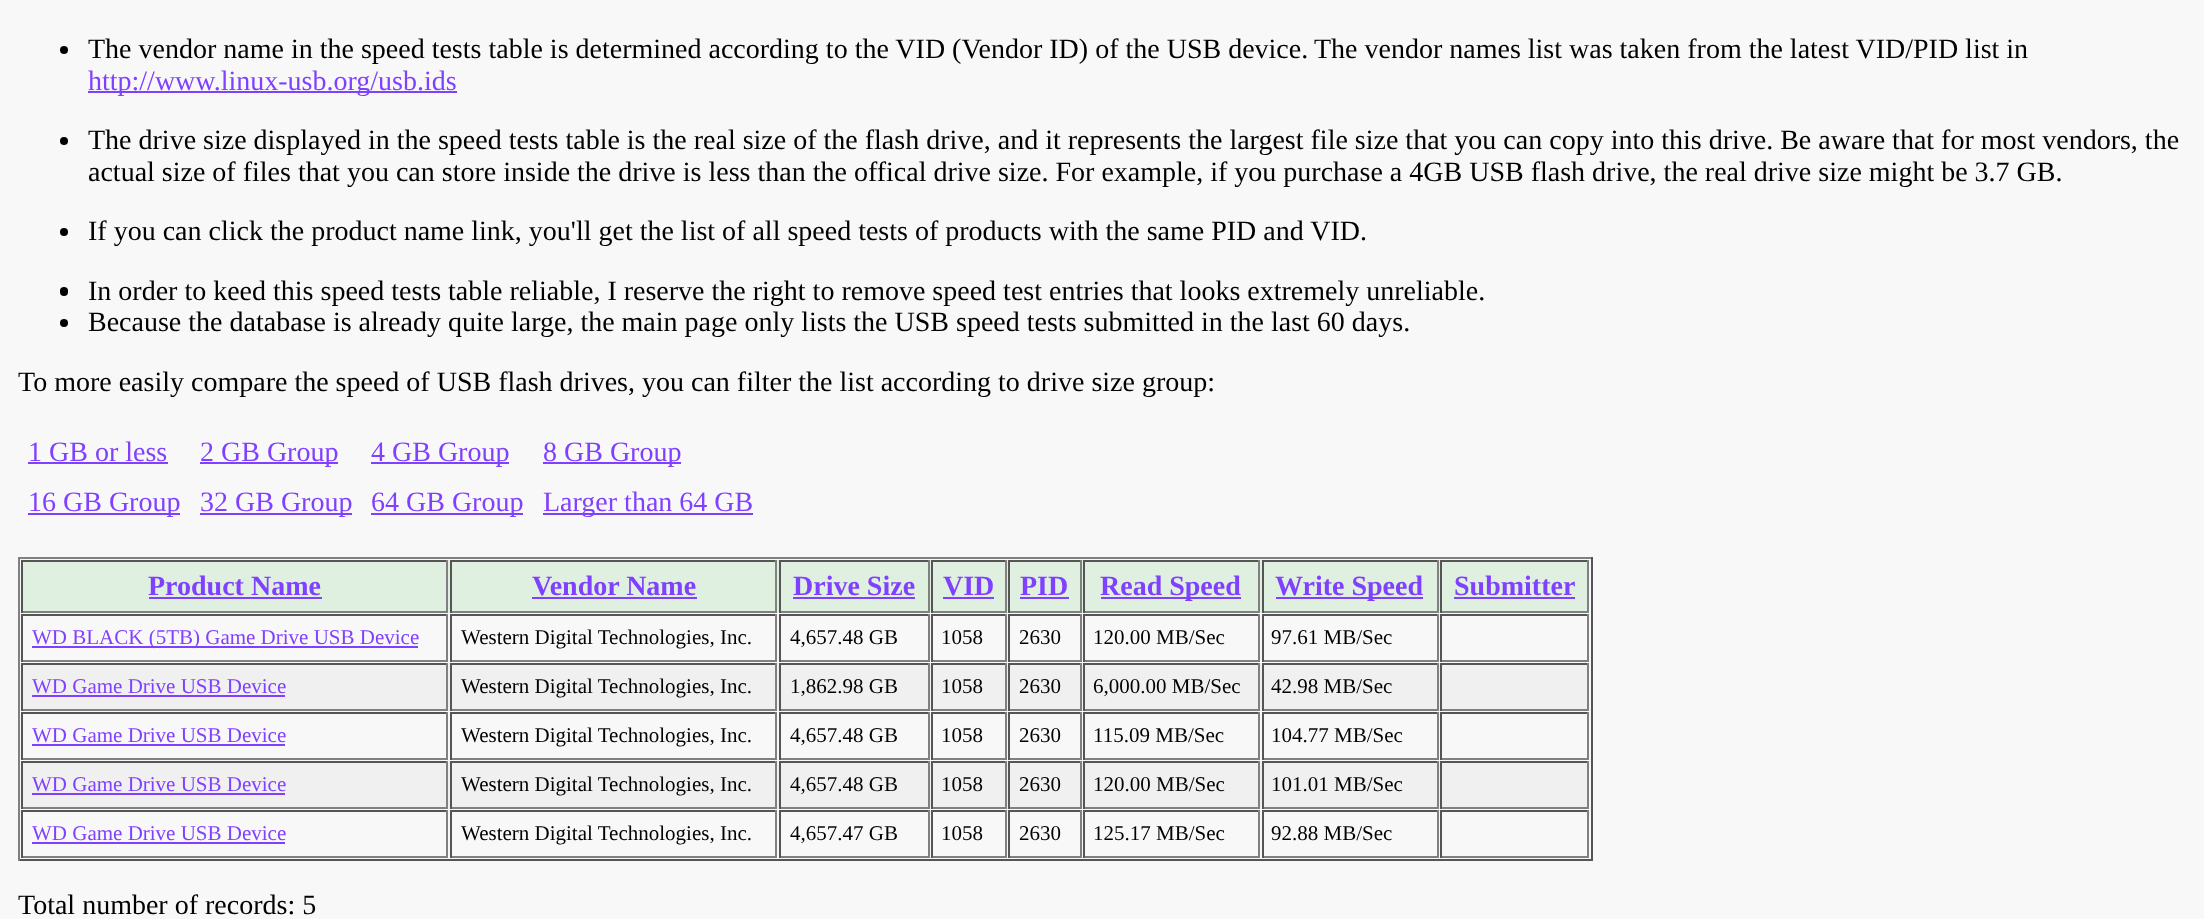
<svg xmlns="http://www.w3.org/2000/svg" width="2204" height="919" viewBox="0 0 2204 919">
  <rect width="100%" height="100%" fill="rgb(248,248,248)"/>
  <circle cx="64" cy="50" r="4" fill="rgb(0,0,0)"/>
  <g font-family="Liberation Serif" font-size="28" fill="rgb(0,0,0)">
    <text x="88" y="58">The vendor name in the speed tests table is determined according to the VID (Vendor ID) of the USB device.</text>
    <text x="1314" y="58">The vendor names list was taken from the latest VID/PID list in</text>
  </g>
  <rect x="88" y="91" width="369" height="2" fill="rgb(128,64,255)"/>
  <text x="88" y="90" font-family="Liberation Serif" font-size="28" fill="rgb(128,64,255)">http://www.linux-usb.org/usb.ids</text>
  <circle cx="64" cy="141" r="4" fill="rgb(0,0,0)"/>
  <g font-family="Liberation Serif" font-size="28" fill="rgb(0,0,0)">
    <text>
      <tspan x="88" y="149">The drive size displayed in the speed tests table is the real size of the flash drive, and it represents the largest file size that you can copy into this drive. Be aware that for most vendors, the</tspan>
      <tspan x="88" y="181">actual size of files that you can store inside the drive is less than the offical drive size. For example, if you purchase a 4GB USB flash drive, the real drive size might be 3.7 GB.</tspan>
    </text>
  </g>
  <circle cx="64" cy="232" r="4" fill="rgb(0,0,0)"/>
  <text x="88" y="240" font-family="Liberation Serif" font-size="28" fill="rgb(0,0,0)">If you can click the product name link, you'll get the list of all speed tests of products with the same PID and VID.</text>
  <rect x="60" y="287" width="8" height="9" rx="4" fill="rgb(0,0,0)"/>
  <text x="88" y="300" font-family="Liberation Serif" font-size="28" fill="rgb(0,0,0)">In order to keed this speed tests table reliable, I reserve the right to remove speed test entries that looks extremely unreliable.</text>
  <circle cx="64" cy="323" r="4" fill="rgb(0,0,0)"/>
  <g font-family="Liberation Serif" font-size="28" fill="rgb(0,0,0)">
    <text x="88" y="331">Because the database is already quite large, the main page only lists the USB speed tests submitted in the last 60 days.</text>
    <text x="18" y="391">To more easily compare the speed of USB flash drives, you can filter the list according to drive size group:</text>
  </g>
  <text x="28" y="461" font-family="Liberation Serif" font-size="28" fill="rgb(128,64,255)">1 GB or less</text>
  <rect x="28" y="462" width="140" height="2" fill="rgb(128,64,255)"/>
  <rect x="200" y="462" width="138" height="2" fill="rgb(128,64,255)"/>
  <text x="200" y="461" font-family="Liberation Serif" font-size="28" fill="rgb(128,64,255)">2 GB Group</text>
  <rect x="371" y="462" width="138" height="2" fill="rgb(128,64,255)"/>
  <text x="371" y="461" font-family="Liberation Serif" font-size="28" fill="rgb(128,64,255)">4 GB Group</text>
  <rect x="543" y="462" width="138" height="2" fill="rgb(128,64,255)"/>
  <text x="543" y="461" font-family="Liberation Serif" font-size="28" fill="rgb(128,64,255)">8 GB Group</text>
  <rect x="28" y="513" width="152" height="2" fill="rgb(128,64,255)"/>
  <text x="28" y="511" font-family="Liberation Serif" font-size="28" fill="rgb(128,64,255)">16 GB Group</text>
  <rect x="200" y="513" width="152" height="2" fill="rgb(128,64,255)"/>
  <text x="200" y="511" font-family="Liberation Serif" font-size="28" fill="rgb(128,64,255)">32 GB Group</text>
  <rect x="371" y="513" width="152" height="2" fill="rgb(128,64,255)"/>
  <text x="371" y="511" font-family="Liberation Serif" font-size="28" fill="rgb(128,64,255)">64 GB Group</text>
  <rect x="543" y="513" width="210" height="2" fill="rgb(128,64,255)"/>
  <text x="543" y="511" font-family="Liberation Serif" font-size="28" fill="rgb(128,64,255)">Larger than 64 GB</text>
  <rect x="18" y="557" width="1575" height="2" fill="rgb(128,128,128)"/>
  <rect x="1591" y="557" width="2" height="304" fill="rgb(85,85,85)"/>
  <rect x="18" y="859" width="1575" height="2" fill="rgb(85,85,85)"/>
  <rect x="18" y="557" width="2" height="304" fill="rgb(128,128,128)"/>
  <rect x="23" y="560" width="1564" height="53" fill="rgb(224,240,224)"/>
  <rect x="21" y="560" width="427" height="2" fill="rgb(85,85,85)"/>
  <rect x="446" y="560" width="2" height="53" fill="rgb(128,128,128)"/>
  <rect x="21" y="611" width="427" height="2" fill="rgb(128,128,128)"/>
  <rect x="21" y="560" width="2" height="53" fill="rgb(85,85,85)"/>
  <text x="148" y="595" font-family="Liberation Serif" font-size="28" font-weight="bold" fill="rgb(128,64,255)">Product Name</text>
  <rect x="149" y="597" width="173" height="2" fill="rgb(128,64,255)"/>
  <rect x="450" y="560" width="327" height="2" fill="rgb(85,85,85)"/>
  <rect x="775" y="560" width="2" height="53" fill="rgb(128,128,128)"/>
  <rect x="450" y="611" width="327" height="2" fill="rgb(128,128,128)"/>
  <rect x="450" y="560" width="2" height="53" fill="rgb(85,85,85)"/>
  <text x="532" y="595" font-family="Liberation Serif" font-size="28" font-weight="bold" fill="rgb(128,64,255)">Vendor Name</text>
  <rect x="532" y="597" width="165" height="2" fill="rgb(128,64,255)"/>
  <rect x="779" y="560" width="150" height="2" fill="rgb(85,85,85)"/>
  <rect x="928" y="560" width="2" height="53" fill="rgb(128,128,128)"/>
  <rect x="779" y="611" width="150" height="2" fill="rgb(128,128,128)"/>
  <rect x="779" y="560" width="2" height="53" fill="rgb(85,85,85)"/>
  <text x="793" y="595" font-family="Liberation Serif" font-size="28" font-weight="bold" fill="rgb(128,64,255)">Drive Size</text>
  <rect x="793" y="597" width="122" height="2" fill="rgb(128,64,255)"/>
  <rect x="931" y="560" width="75" height="2" fill="rgb(85,85,85)"/>
  <rect x="1005" y="560" width="2" height="53" fill="rgb(128,128,128)"/>
  <rect x="931" y="611" width="75" height="2" fill="rgb(128,128,128)"/>
  <rect x="931" y="560" width="2" height="53" fill="rgb(85,85,85)"/>
  <text x="943" y="595" font-family="Liberation Serif" font-size="28" font-weight="bold" fill="rgb(128,64,255)">VID</text>
  <rect x="943" y="597" width="51" height="2" fill="rgb(128,64,255)"/>
  <rect x="1008" y="560" width="74" height="2" fill="rgb(85,85,85)"/>
  <rect x="1080" y="560" width="2" height="53" fill="rgb(128,128,128)"/>
  <rect x="1008" y="611" width="74" height="2" fill="rgb(128,128,128)"/>
  <rect x="1008" y="560" width="2" height="53" fill="rgb(85,85,85)"/>
  <text x="1020" y="595" font-family="Liberation Serif" font-size="28" font-weight="bold" fill="rgb(128,64,255)">PID</text>
  <rect x="1020" y="597" width="49" height="2" fill="rgb(128,64,255)"/>
  <rect x="1083" y="560" width="177" height="2" fill="rgb(85,85,85)"/>
  <rect x="1258" y="560" width="2" height="53" fill="rgb(128,128,128)"/>
  <rect x="1083" y="611" width="177" height="2" fill="rgb(128,128,128)"/>
  <rect x="1083" y="560" width="2" height="53" fill="rgb(85,85,85)"/>
  <rect x="1101" y="597" width="140" height="2" fill="rgb(128,64,255)"/>
  <text x="1100" y="595" font-family="Liberation Serif" font-size="28" font-weight="bold" fill="rgb(128,64,255)">Read Speed</text>
  <rect x="1262" y="560" width="177" height="2" fill="rgb(85,85,85)"/>
  <rect x="1437" y="560" width="2" height="53" fill="rgb(128,128,128)"/>
  <rect x="1262" y="611" width="177" height="2" fill="rgb(128,128,128)"/>
  <rect x="1262" y="560" width="2" height="53" fill="rgb(85,85,85)"/>
  <rect x="1276" y="597" width="147" height="2" fill="rgb(128,64,255)"/>
  <text x="1275" y="595" font-family="Liberation Serif" font-size="28" font-weight="bold" fill="rgb(128,64,255)">Write Speed</text>
  <rect x="1440" y="560" width="149" height="2" fill="rgb(85,85,85)"/>
  <rect x="1587" y="560" width="2" height="53" fill="rgb(128,128,128)"/>
  <rect x="1440" y="611" width="149" height="2" fill="rgb(128,128,128)"/>
  <rect x="1440" y="560" width="2" height="53" fill="rgb(85,85,85)"/>
  <text x="1454" y="595" font-family="Liberation Serif" font-size="28" font-weight="bold" fill="rgb(128,64,255)">Submitter</text>
  <rect x="1454" y="597" width="121" height="2" fill="rgb(128,64,255)"/>
  <rect x="21" y="614" width="427" height="2" fill="rgb(85,85,85)"/>
  <rect x="446" y="614" width="2" height="48" fill="rgb(128,128,128)"/>
  <rect x="21" y="660" width="427" height="2" fill="rgb(128,128,128)"/>
  <rect x="21" y="614" width="2" height="48" fill="rgb(85,85,85)"/>
  <rect x="32" y="646" width="386" height="2" fill="rgb(128,64,255)"/>
  <text x="32" y="644" font-family="Liberation Serif" font-size="21" fill="rgb(128,64,255)">WD BLACK (5TB) Game Drive USB Device</text>
  <rect x="450" y="614" width="327" height="2" fill="rgb(85,85,85)"/>
  <rect x="775" y="614" width="2" height="48" fill="rgb(128,128,128)"/>
  <rect x="450" y="660" width="327" height="2" fill="rgb(128,128,128)"/>
  <rect x="450" y="614" width="2" height="48" fill="rgb(85,85,85)"/>
  <text x="461" y="644" font-family="Liberation Serif" font-size="21" fill="rgb(0,0,0)">Western Digital Technologies, Inc.</text>
  <rect x="779" y="614" width="150" height="2" fill="rgb(85,85,85)"/>
  <rect x="928" y="614" width="2" height="48" fill="rgb(128,128,128)"/>
  <rect x="779" y="660" width="150" height="2" fill="rgb(128,128,128)"/>
  <rect x="779" y="614" width="2" height="48" fill="rgb(85,85,85)"/>
  <text x="790" y="644" font-family="Liberation Serif" font-size="21" fill="rgb(0,0,0)">4,657.48 GB</text>
  <rect x="931" y="614" width="75" height="2" fill="rgb(85,85,85)"/>
  <rect x="1005" y="614" width="2" height="48" fill="rgb(128,128,128)"/>
  <rect x="931" y="660" width="75" height="2" fill="rgb(128,128,128)"/>
  <rect x="931" y="614" width="2" height="48" fill="rgb(85,85,85)"/>
  <text x="941" y="644" font-family="Liberation Serif" font-size="21" fill="rgb(0,0,0)">1058</text>
  <rect x="1008" y="614" width="74" height="2" fill="rgb(85,85,85)"/>
  <rect x="1080" y="614" width="2" height="48" fill="rgb(128,128,128)"/>
  <rect x="1008" y="660" width="74" height="2" fill="rgb(128,128,128)"/>
  <rect x="1008" y="614" width="2" height="48" fill="rgb(85,85,85)"/>
  <text x="1019" y="644" font-family="Liberation Serif" font-size="21" fill="rgb(0,0,0)">2630</text>
  <rect x="1083" y="614" width="177" height="2" fill="rgb(85,85,85)"/>
  <rect x="1258" y="614" width="2" height="48" fill="rgb(128,128,128)"/>
  <rect x="1083" y="660" width="177" height="2" fill="rgb(128,128,128)"/>
  <rect x="1083" y="614" width="2" height="48" fill="rgb(85,85,85)"/>
  <text x="1093" y="644" font-family="Liberation Serif" font-size="21" fill="rgb(0,0,0)">120.00 MB/Sec</text>
  <rect x="1262" y="614" width="177" height="2" fill="rgb(85,85,85)"/>
  <rect x="1437" y="614" width="2" height="48" fill="rgb(128,128,128)"/>
  <rect x="1262" y="660" width="177" height="2" fill="rgb(128,128,128)"/>
  <rect x="1262" y="614" width="2" height="48" fill="rgb(85,85,85)"/>
  <text x="1271" y="644" font-family="Liberation Serif" font-size="21" fill="rgb(0,0,0)">97.61 MB/Sec</text>
  <rect x="1440" y="614" width="149" height="2" fill="rgb(85,85,85)"/>
  <rect x="1587" y="614" width="2" height="48" fill="rgb(128,128,128)"/>
  <rect x="1440" y="660" width="149" height="2" fill="rgb(128,128,128)"/>
  <rect x="1440" y="614" width="2" height="48" fill="rgb(85,85,85)"/>
  <rect x="23" y="663" width="1564" height="48" fill="rgb(240,240,240)"/>
  <rect x="21" y="663" width="427" height="2" fill="rgb(85,85,85)"/>
  <rect x="446" y="663" width="2" height="48" fill="rgb(128,128,128)"/>
  <rect x="21" y="709" width="427" height="2" fill="rgb(128,128,128)"/>
  <rect x="21" y="663" width="2" height="48" fill="rgb(85,85,85)"/>
  <text x="32" y="693" font-family="Liberation Serif" font-size="21" fill="rgb(128,64,255)">WD Game Drive USB Device</text>
  <rect x="32" y="695" width="253" height="2" fill="rgb(128,64,255)"/>
  <rect x="450" y="663" width="327" height="2" fill="rgb(85,85,85)"/>
  <rect x="775" y="663" width="2" height="48" fill="rgb(128,128,128)"/>
  <rect x="450" y="709" width="327" height="2" fill="rgb(128,128,128)"/>
  <rect x="450" y="663" width="2" height="48" fill="rgb(85,85,85)"/>
  <text x="461" y="693" font-family="Liberation Serif" font-size="21" fill="rgb(0,0,0)">Western Digital Technologies, Inc.</text>
  <rect x="779" y="663" width="150" height="2" fill="rgb(85,85,85)"/>
  <rect x="928" y="663" width="2" height="48" fill="rgb(128,128,128)"/>
  <rect x="779" y="709" width="150" height="2" fill="rgb(128,128,128)"/>
  <rect x="779" y="663" width="2" height="48" fill="rgb(85,85,85)"/>
  <text x="790" y="693" font-family="Liberation Serif" font-size="21" fill="rgb(0,0,0)">1,862.98 GB</text>
  <rect x="931" y="663" width="75" height="2" fill="rgb(85,85,85)"/>
  <rect x="1005" y="663" width="2" height="48" fill="rgb(128,128,128)"/>
  <rect x="931" y="709" width="75" height="2" fill="rgb(128,128,128)"/>
  <rect x="931" y="663" width="2" height="48" fill="rgb(85,85,85)"/>
  <text x="941" y="693" font-family="Liberation Serif" font-size="21" fill="rgb(0,0,0)">1058</text>
  <rect x="1008" y="663" width="74" height="2" fill="rgb(85,85,85)"/>
  <rect x="1080" y="663" width="2" height="48" fill="rgb(128,128,128)"/>
  <rect x="1008" y="709" width="74" height="2" fill="rgb(128,128,128)"/>
  <rect x="1008" y="663" width="2" height="48" fill="rgb(85,85,85)"/>
  <text x="1019" y="693" font-family="Liberation Serif" font-size="21" fill="rgb(0,0,0)">2630</text>
  <rect x="1083" y="663" width="177" height="2" fill="rgb(85,85,85)"/>
  <rect x="1258" y="663" width="2" height="48" fill="rgb(128,128,128)"/>
  <rect x="1083" y="709" width="177" height="2" fill="rgb(128,128,128)"/>
  <rect x="1083" y="663" width="2" height="48" fill="rgb(85,85,85)"/>
  <text x="1093" y="693" font-family="Liberation Serif" font-size="21" fill="rgb(0,0,0)">6,000.00 MB/Sec</text>
  <rect x="1262" y="663" width="177" height="2" fill="rgb(85,85,85)"/>
  <rect x="1437" y="663" width="2" height="48" fill="rgb(128,128,128)"/>
  <rect x="1262" y="709" width="177" height="2" fill="rgb(128,128,128)"/>
  <rect x="1262" y="663" width="2" height="48" fill="rgb(85,85,85)"/>
  <text x="1271" y="693" font-family="Liberation Serif" font-size="21" fill="rgb(0,0,0)">42.98 MB/Sec</text>
  <rect x="1440" y="663" width="149" height="2" fill="rgb(85,85,85)"/>
  <rect x="1587" y="663" width="2" height="48" fill="rgb(128,128,128)"/>
  <rect x="1440" y="709" width="149" height="2" fill="rgb(128,128,128)"/>
  <rect x="1440" y="663" width="2" height="48" fill="rgb(85,85,85)"/>
  <rect x="21" y="712" width="427" height="2" fill="rgb(85,85,85)"/>
  <rect x="446" y="712" width="2" height="48" fill="rgb(128,128,128)"/>
  <rect x="21" y="758" width="427" height="2" fill="rgb(128,128,128)"/>
  <rect x="21" y="712" width="2" height="48" fill="rgb(85,85,85)"/>
  <text x="32" y="742" font-family="Liberation Serif" font-size="21" fill="rgb(128,64,255)">WD Game Drive USB Device</text>
  <rect x="32" y="744" width="253" height="2" fill="rgb(128,64,255)"/>
  <rect x="450" y="712" width="327" height="2" fill="rgb(85,85,85)"/>
  <rect x="775" y="712" width="2" height="48" fill="rgb(128,128,128)"/>
  <rect x="450" y="758" width="327" height="2" fill="rgb(128,128,128)"/>
  <rect x="450" y="712" width="2" height="48" fill="rgb(85,85,85)"/>
  <text x="461" y="742" font-family="Liberation Serif" font-size="21" fill="rgb(0,0,0)">Western Digital Technologies, Inc.</text>
  <rect x="779" y="712" width="150" height="2" fill="rgb(85,85,85)"/>
  <rect x="928" y="712" width="2" height="48" fill="rgb(128,128,128)"/>
  <rect x="779" y="758" width="150" height="2" fill="rgb(128,128,128)"/>
  <rect x="779" y="712" width="2" height="48" fill="rgb(85,85,85)"/>
  <text x="790" y="742" font-family="Liberation Serif" font-size="21" fill="rgb(0,0,0)">4,657.48 GB</text>
  <rect x="931" y="712" width="75" height="2" fill="rgb(85,85,85)"/>
  <rect x="1005" y="712" width="2" height="48" fill="rgb(128,128,128)"/>
  <rect x="931" y="758" width="75" height="2" fill="rgb(128,128,128)"/>
  <rect x="931" y="712" width="2" height="48" fill="rgb(85,85,85)"/>
  <text x="941" y="742" font-family="Liberation Serif" font-size="21" fill="rgb(0,0,0)">1058</text>
  <rect x="1008" y="712" width="74" height="2" fill="rgb(85,85,85)"/>
  <rect x="1080" y="712" width="2" height="48" fill="rgb(128,128,128)"/>
  <rect x="1008" y="758" width="74" height="2" fill="rgb(128,128,128)"/>
  <rect x="1008" y="712" width="2" height="48" fill="rgb(85,85,85)"/>
  <text x="1019" y="742" font-family="Liberation Serif" font-size="21" fill="rgb(0,0,0)">2630</text>
  <rect x="1083" y="712" width="177" height="2" fill="rgb(85,85,85)"/>
  <rect x="1258" y="712" width="2" height="48" fill="rgb(128,128,128)"/>
  <rect x="1083" y="758" width="177" height="2" fill="rgb(128,128,128)"/>
  <rect x="1083" y="712" width="2" height="48" fill="rgb(85,85,85)"/>
  <text x="1093" y="742" font-family="Liberation Serif" font-size="21" fill="rgb(0,0,0)">115.09 MB/Sec</text>
  <rect x="1262" y="712" width="177" height="2" fill="rgb(85,85,85)"/>
  <rect x="1437" y="712" width="2" height="48" fill="rgb(128,128,128)"/>
  <rect x="1262" y="758" width="177" height="2" fill="rgb(128,128,128)"/>
  <rect x="1262" y="712" width="2" height="48" fill="rgb(85,85,85)"/>
  <text x="1271" y="742" font-family="Liberation Serif" font-size="21" fill="rgb(0,0,0)">104.77 MB/Sec</text>
  <rect x="1440" y="712" width="149" height="2" fill="rgb(85,85,85)"/>
  <rect x="1587" y="712" width="2" height="48" fill="rgb(128,128,128)"/>
  <rect x="1440" y="758" width="149" height="2" fill="rgb(128,128,128)"/>
  <rect x="1440" y="712" width="2" height="48" fill="rgb(85,85,85)"/>
  <rect x="23" y="761" width="1564" height="48" fill="rgb(240,240,240)"/>
  <rect x="21" y="761" width="427" height="2" fill="rgb(85,85,85)"/>
  <rect x="446" y="761" width="2" height="48" fill="rgb(128,128,128)"/>
  <rect x="21" y="807" width="427" height="2" fill="rgb(128,128,128)"/>
  <rect x="21" y="761" width="2" height="48" fill="rgb(85,85,85)"/>
  <text x="32" y="791" font-family="Liberation Serif" font-size="21" fill="rgb(128,64,255)">WD Game Drive USB Device</text>
  <rect x="32" y="793" width="253" height="2" fill="rgb(128,64,255)"/>
  <rect x="450" y="761" width="327" height="2" fill="rgb(85,85,85)"/>
  <rect x="775" y="761" width="2" height="48" fill="rgb(128,128,128)"/>
  <rect x="450" y="807" width="327" height="2" fill="rgb(128,128,128)"/>
  <rect x="450" y="761" width="2" height="48" fill="rgb(85,85,85)"/>
  <text x="461" y="791" font-family="Liberation Serif" font-size="21" fill="rgb(0,0,0)">Western Digital Technologies, Inc.</text>
  <rect x="779" y="761" width="150" height="2" fill="rgb(85,85,85)"/>
  <rect x="928" y="761" width="2" height="48" fill="rgb(128,128,128)"/>
  <rect x="779" y="807" width="150" height="2" fill="rgb(128,128,128)"/>
  <rect x="779" y="761" width="2" height="48" fill="rgb(85,85,85)"/>
  <text x="790" y="791" font-family="Liberation Serif" font-size="21" fill="rgb(0,0,0)">4,657.48 GB</text>
  <rect x="931" y="761" width="75" height="2" fill="rgb(85,85,85)"/>
  <rect x="1005" y="761" width="2" height="48" fill="rgb(128,128,128)"/>
  <rect x="931" y="807" width="75" height="2" fill="rgb(128,128,128)"/>
  <rect x="931" y="761" width="2" height="48" fill="rgb(85,85,85)"/>
  <text x="941" y="791" font-family="Liberation Serif" font-size="21" fill="rgb(0,0,0)">1058</text>
  <rect x="1008" y="761" width="74" height="2" fill="rgb(85,85,85)"/>
  <rect x="1080" y="761" width="2" height="48" fill="rgb(128,128,128)"/>
  <rect x="1008" y="807" width="74" height="2" fill="rgb(128,128,128)"/>
  <rect x="1008" y="761" width="2" height="48" fill="rgb(85,85,85)"/>
  <text x="1019" y="791" font-family="Liberation Serif" font-size="21" fill="rgb(0,0,0)">2630</text>
  <rect x="1083" y="761" width="177" height="2" fill="rgb(85,85,85)"/>
  <rect x="1258" y="761" width="2" height="48" fill="rgb(128,128,128)"/>
  <rect x="1083" y="807" width="177" height="2" fill="rgb(128,128,128)"/>
  <rect x="1083" y="761" width="2" height="48" fill="rgb(85,85,85)"/>
  <text x="1093" y="791" font-family="Liberation Serif" font-size="21" fill="rgb(0,0,0)">120.00 MB/Sec</text>
  <rect x="1262" y="761" width="177" height="2" fill="rgb(85,85,85)"/>
  <rect x="1437" y="761" width="2" height="48" fill="rgb(128,128,128)"/>
  <rect x="1262" y="807" width="177" height="2" fill="rgb(128,128,128)"/>
  <rect x="1262" y="761" width="2" height="48" fill="rgb(85,85,85)"/>
  <text x="1271" y="791" font-family="Liberation Serif" font-size="21" fill="rgb(0,0,0)">101.01 MB/Sec</text>
  <rect x="1440" y="761" width="149" height="2" fill="rgb(85,85,85)"/>
  <rect x="1587" y="761" width="2" height="48" fill="rgb(128,128,128)"/>
  <rect x="1440" y="807" width="149" height="2" fill="rgb(128,128,128)"/>
  <rect x="1440" y="761" width="2" height="48" fill="rgb(85,85,85)"/>
  <rect x="21" y="810" width="427" height="2" fill="rgb(85,85,85)"/>
  <rect x="446" y="810" width="2" height="48" fill="rgb(128,128,128)"/>
  <rect x="21" y="856" width="427" height="2" fill="rgb(128,128,128)"/>
  <rect x="21" y="810" width="2" height="48" fill="rgb(85,85,85)"/>
  <text x="32" y="840" font-family="Liberation Serif" font-size="21" fill="rgb(128,64,255)">WD Game Drive USB Device</text>
  <rect x="32" y="842" width="253" height="2" fill="rgb(128,64,255)"/>
  <rect x="450" y="810" width="327" height="2" fill="rgb(85,85,85)"/>
  <rect x="775" y="810" width="2" height="48" fill="rgb(128,128,128)"/>
  <rect x="450" y="856" width="327" height="2" fill="rgb(128,128,128)"/>
  <rect x="450" y="810" width="2" height="48" fill="rgb(85,85,85)"/>
  <text x="461" y="840" font-family="Liberation Serif" font-size="21" fill="rgb(0,0,0)">Western Digital Technologies, Inc.</text>
  <rect x="779" y="810" width="150" height="2" fill="rgb(85,85,85)"/>
  <rect x="928" y="810" width="2" height="48" fill="rgb(128,128,128)"/>
  <rect x="779" y="856" width="150" height="2" fill="rgb(128,128,128)"/>
  <rect x="779" y="810" width="2" height="48" fill="rgb(85,85,85)"/>
  <text x="790" y="840" font-family="Liberation Serif" font-size="21" fill="rgb(0,0,0)">4,657.47 GB</text>
  <rect x="931" y="810" width="75" height="2" fill="rgb(85,85,85)"/>
  <rect x="1005" y="810" width="2" height="48" fill="rgb(128,128,128)"/>
  <rect x="931" y="856" width="75" height="2" fill="rgb(128,128,128)"/>
  <rect x="931" y="810" width="2" height="48" fill="rgb(85,85,85)"/>
  <text x="941" y="840" font-family="Liberation Serif" font-size="21" fill="rgb(0,0,0)">1058</text>
  <rect x="1008" y="810" width="74" height="2" fill="rgb(85,85,85)"/>
  <rect x="1080" y="810" width="2" height="48" fill="rgb(128,128,128)"/>
  <rect x="1008" y="856" width="74" height="2" fill="rgb(128,128,128)"/>
  <rect x="1008" y="810" width="2" height="48" fill="rgb(85,85,85)"/>
  <text x="1019" y="840" font-family="Liberation Serif" font-size="21" fill="rgb(0,0,0)">2630</text>
  <rect x="1083" y="810" width="177" height="2" fill="rgb(85,85,85)"/>
  <rect x="1258" y="810" width="2" height="48" fill="rgb(128,128,128)"/>
  <rect x="1083" y="856" width="177" height="2" fill="rgb(128,128,128)"/>
  <rect x="1083" y="810" width="2" height="48" fill="rgb(85,85,85)"/>
  <text x="1093" y="840" font-family="Liberation Serif" font-size="21" fill="rgb(0,0,0)">125.17 MB/Sec</text>
  <rect x="1262" y="810" width="177" height="2" fill="rgb(85,85,85)"/>
  <rect x="1437" y="810" width="2" height="48" fill="rgb(128,128,128)"/>
  <rect x="1262" y="856" width="177" height="2" fill="rgb(128,128,128)"/>
  <rect x="1262" y="810" width="2" height="48" fill="rgb(85,85,85)"/>
  <text x="1271" y="840" font-family="Liberation Serif" font-size="21" fill="rgb(0,0,0)">92.88 MB/Sec</text>
  <rect x="1440" y="810" width="149" height="2" fill="rgb(85,85,85)"/>
  <rect x="1587" y="810" width="2" height="48" fill="rgb(128,128,128)"/>
  <rect x="1440" y="856" width="149" height="2" fill="rgb(128,128,128)"/>
  <rect x="1440" y="810" width="2" height="48" fill="rgb(85,85,85)"/>
  <text x="18" y="914" font-family="Liberation Serif" font-size="28" fill="rgb(0,0,0)">Total number of records: 5</text>
</svg>
